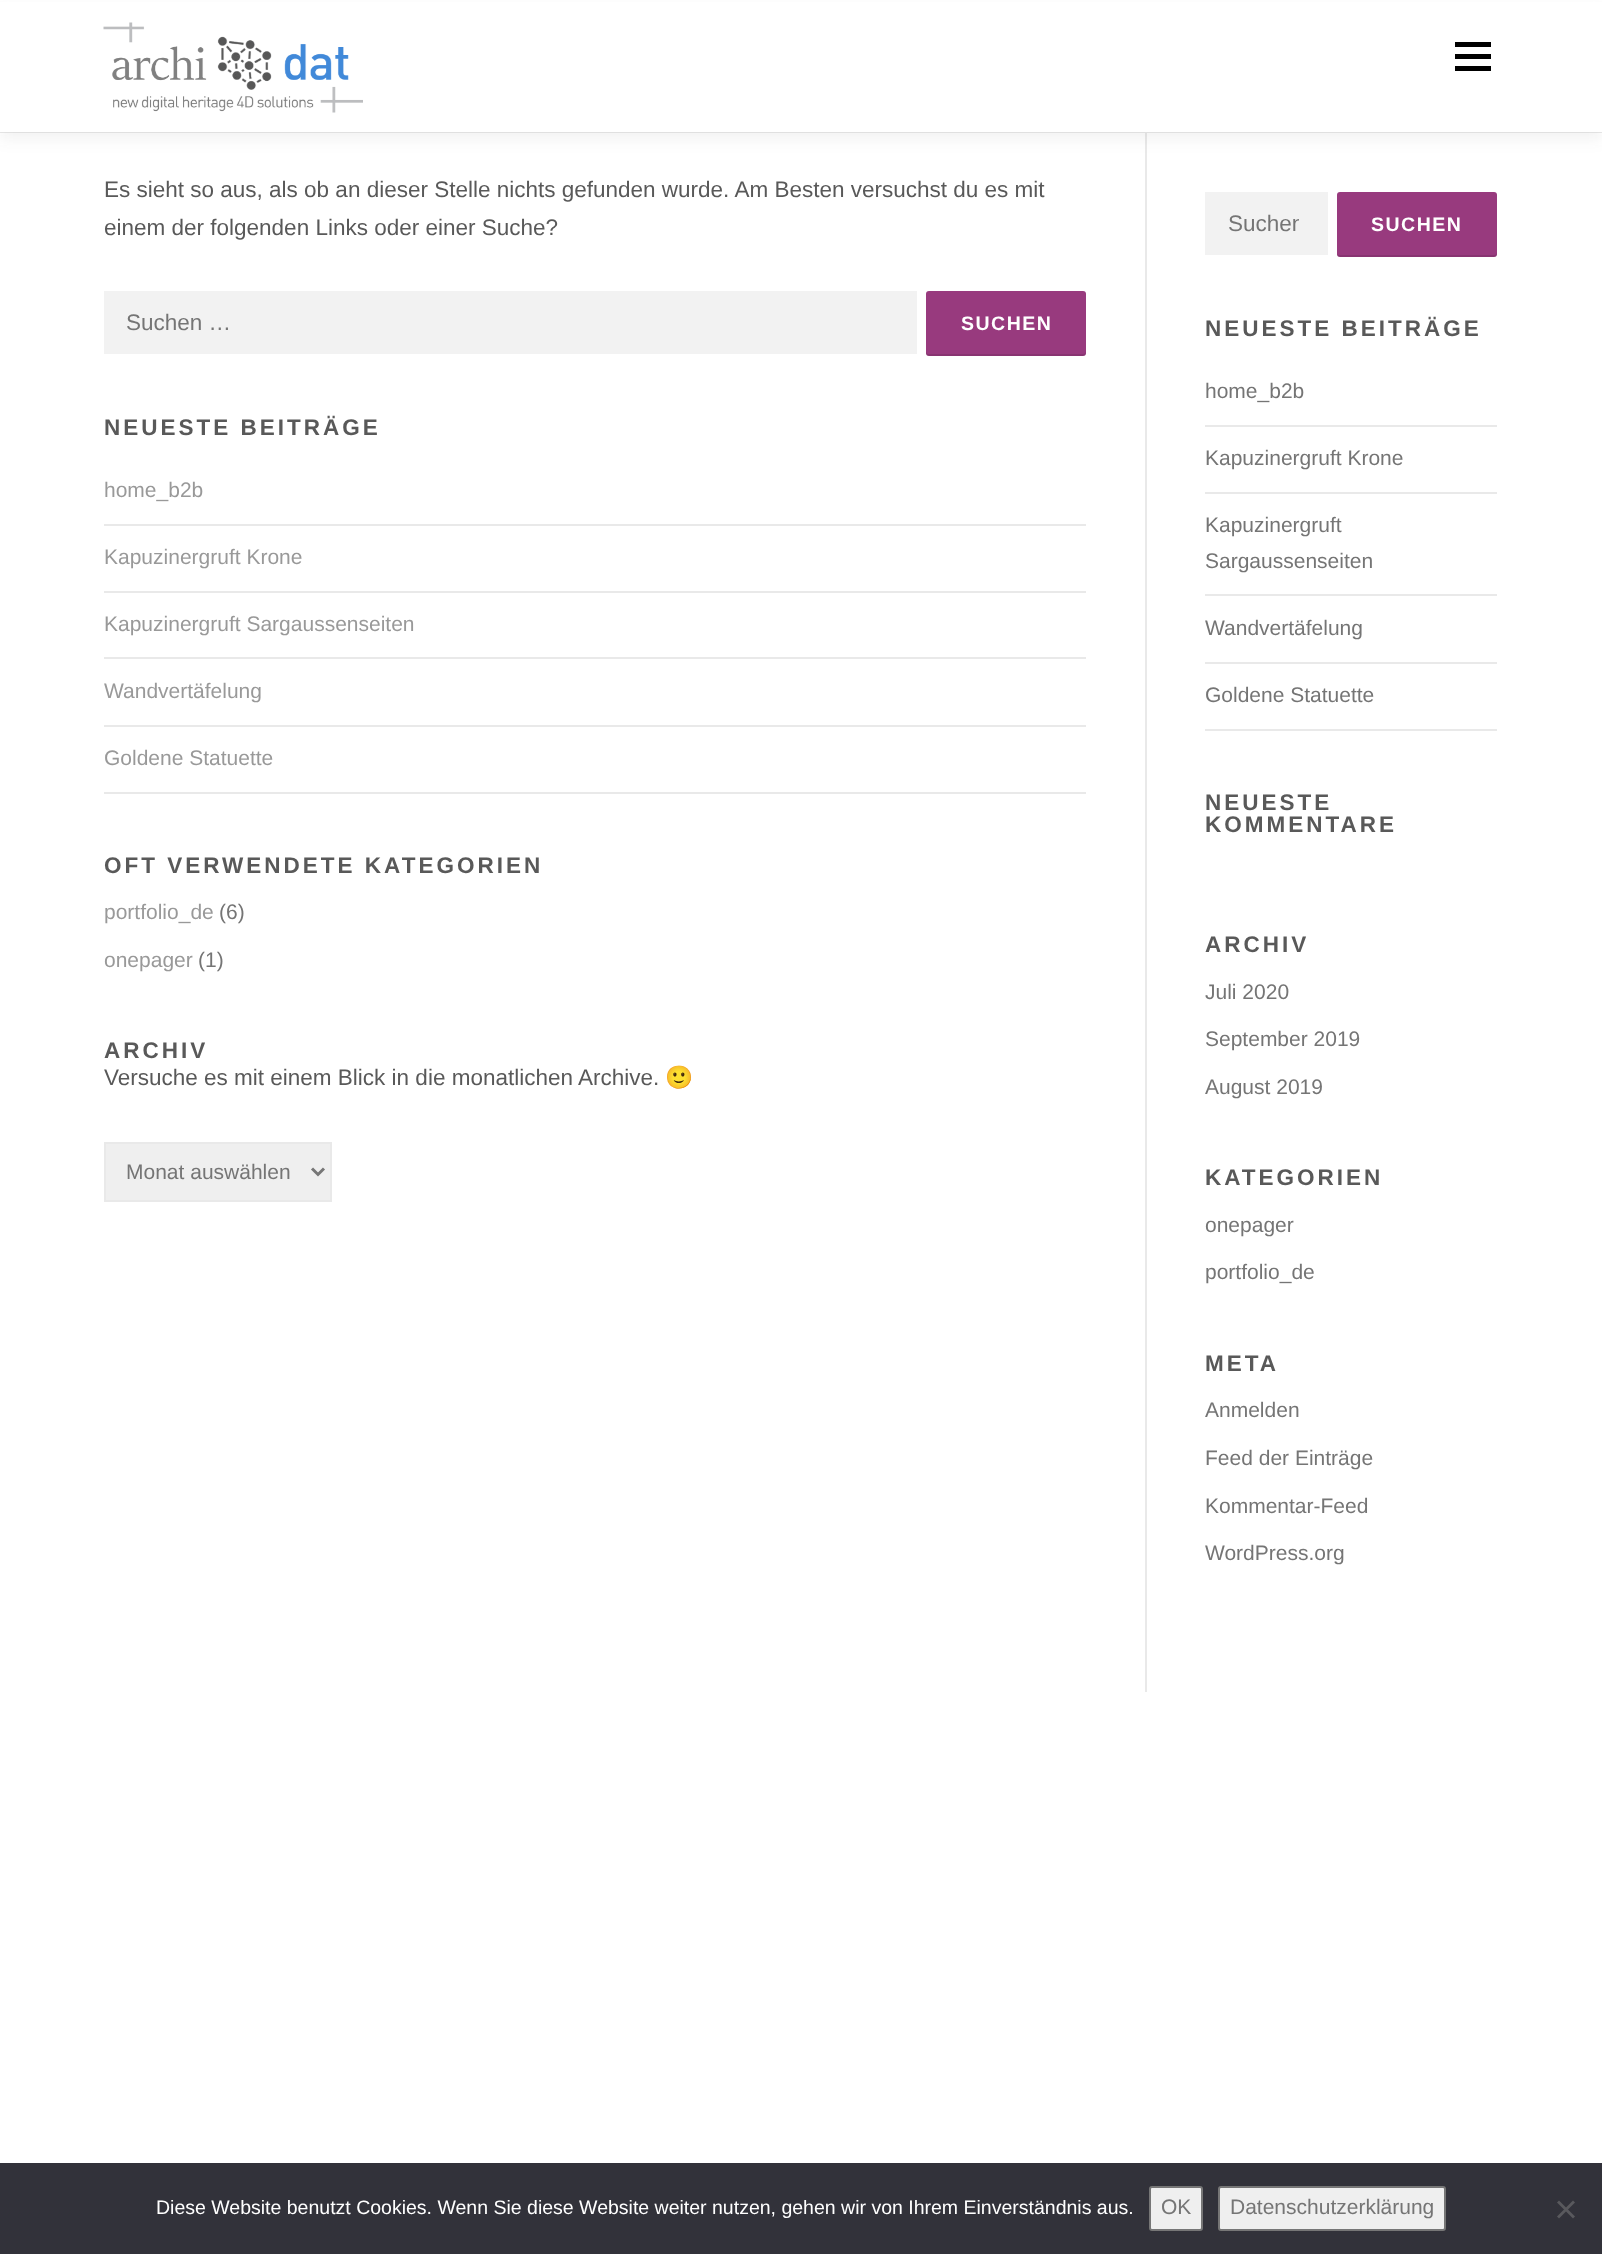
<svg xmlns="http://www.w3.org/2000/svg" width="1602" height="2254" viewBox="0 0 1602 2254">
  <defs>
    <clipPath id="clip1"><rect x="1227" y="210" width="72" height="26"/></clipPath>
  </defs>
  <rect width="100%" height="100%" fill="rgb(255,255,255)"/>
  <rect x="0" y="132" width="1602" height="1" fill="rgb(233,233,233)"/>
  <rect x="1145" y="132" width="2" height="1560" fill="rgb(233,233,233)"/>
  <rect x="0" y="8" width="1602" height="132" fill="rgba(50,50,50,0.06)" filter="blur(7.5px)"/>
  <rect x="0" y="2" width="1602" height="130" fill="rgb(255,255,255)"/>
  <image x="103" y="22" width="260" height="91" href="pic1.png"/>
  <rect x="1455" y="54" width="36" height="5" fill="rgb(0,0,0)"/>
  <rect x="1455" y="42" width="36" height="5" fill="rgb(0,0,0)"/>
  <rect x="1455" y="66" width="36" height="5" fill="rgb(0,0,0)"/>
  <g font-family="Liberation Sans" font-size="22.5" fill="rgb(89,89,89)">
    <text>
      <tspan x="104" y="197">Es sieht so aus, als ob an dieser Stelle nichts gefunden wurde. Am Besten versuchst du es mit</tspan>
      <tspan x="104" y="235">einem der folgenden Links oder einer Suche?</tspan>
    </text>
  </g>
  <rect x="104" y="291" width="813" height="63" fill="rgb(242,242,242)"/>
  <text x="126" y="330" font-family="Liberation Sans" font-size="22.5" fill="rgb(117,117,117)">Suchen …</text>
  <rect x="926" y="291" width="160" height="65" rx="3" fill="rgb(152,58,126)"/>
  <path d="M926 351V353C926 355 927 356 929 356H1083C1085 356 1086 355 1086 353V351C1086 353 1085 354 1083 354H928C927 354 926 353 926 351Z" fill="rgba(0,0,0,0.1)"/>
  <text x="961" y="330" font-family="Liberation Sans" font-size="19.5" font-weight="bold" letter-spacing="1.5" fill="rgb(255,255,255)">SUCHEN</text>
  <text x="104" y="435" font-family="Liberation Sans" font-size="22.5" font-weight="bold" letter-spacing="3" fill="rgb(89,89,89)">NEUESTE BEITRÄGE</text>
  <rect x="104" y="524" width="982" height="2" fill="rgb(233,233,233)"/>
  <text x="104" y="497" font-family="Liberation Sans" font-size="21" fill="rgb(153,153,153)">home_b2b</text>
  <rect x="104" y="591" width="982" height="2" fill="rgb(233,233,233)"/>
  <text x="104" y="564" font-family="Liberation Sans" font-size="21" fill="rgb(153,153,153)">Kapuzinergruft Krone</text>
  <rect x="104" y="657" width="982" height="2" fill="rgb(233,233,233)"/>
  <text x="104" y="631" font-family="Liberation Sans" font-size="21" fill="rgb(153,153,153)">Kapuzinergruft Sargaussenseiten</text>
  <rect x="104" y="725" width="982" height="2" fill="rgb(233,233,233)"/>
  <text x="104" y="698" font-family="Liberation Sans" font-size="21" fill="rgb(153,153,153)">Wandvertäfelung</text>
  <rect x="104" y="792" width="982" height="2" fill="rgb(233,233,233)"/>
  <text x="104" y="765" font-family="Liberation Sans" font-size="21" fill="rgb(153,153,153)">Goldene Statuette</text>
  <text x="104" y="873" font-family="Liberation Sans" font-size="22.5" font-weight="bold" letter-spacing="3" fill="rgb(89,89,89)">OFT VERWENDETE KATEGORIEN</text>
  <text x="104" y="919" font-family="Liberation Sans" font-size="21" fill="rgb(153,153,153)">portfolio_de</text>
  <text x="219" y="919" font-family="Liberation Sans" font-size="21" fill="rgb(117,117,117)">(6)</text>
  <text x="104" y="967" font-family="Liberation Sans" font-size="21" fill="rgb(153,153,153)">onepager</text>
  <text x="198" y="967" font-family="Liberation Sans" font-size="21" fill="rgb(117,117,117)">(1)</text>
  <text x="104" y="1058" font-family="Liberation Sans" font-size="22.5" font-weight="bold" letter-spacing="3" fill="rgb(89,89,89)">ARCHIV</text>
  <text x="104" y="1085" font-family="Liberation Sans" font-size="22.5" fill="rgb(89,89,89)">Versuche es mit einem Blick in die monatlichen Archive.</text>
  <text x="665" y="1085" font-family="Noto Color Emoji" font-size="22.5" fill="rgb(89,89,89)">🙂</text>
  <rect x="105" y="1143" width="226" height="58" fill="rgb(239,239,239)" stroke="rgb(233,233,233)" stroke-width="2"/>
  <path d="M312 1168.5L318 1174.5L324 1168.5" fill="none" stroke="rgb(119,119,119)" stroke-width="3"/>
  <text x="126" y="1179" font-family="Liberation Sans" font-size="21" fill="rgb(117,117,117)">Monat auswählen</text>
  <rect x="1205" y="192" width="123" height="63" fill="rgb(242,242,242)"/>
  <g clip-path="url(#clip1)">
    <text x="1228" y="231" font-family="Liberation Sans" font-size="22.5" fill="rgb(117,117,117)">Suchen</text>
  </g>
  <rect x="1337" y="192" width="160" height="65" rx="3" fill="rgb(152,58,126)"/>
  <path d="M1337 254C1337 256 1338 257 1340 257H1494C1496 257 1497 256 1497 254V252C1497 254 1496 255 1494 255H1340C1339 255 1338 255 1337 254Z" fill="rgba(0,0,0,0.1)"/>
  <text x="1371" y="231" font-family="Liberation Sans" font-size="19.5" font-weight="bold" letter-spacing="1.5" fill="rgb(255,255,255)">SUCHEN</text>
  <text x="1205" y="336" font-family="Liberation Sans" font-size="22.5" font-weight="bold" letter-spacing="3" fill="rgb(89,89,89)">NEUESTE BEITRÄGE</text>
  <rect x="1205" y="425" width="292" height="2" fill="rgb(233,233,233)"/>
  <text x="1205" y="398" font-family="Liberation Sans" font-size="21" fill="rgb(117,117,117)">home_b2b</text>
  <rect x="1205" y="492" width="292" height="2" fill="rgb(233,233,233)"/>
  <text x="1205" y="465" font-family="Liberation Sans" font-size="21" fill="rgb(117,117,117)">Kapuzinergruft Krone</text>
  <rect x="1205" y="594" width="292" height="2" fill="rgb(233,233,233)"/>
  <g font-family="Liberation Sans" font-size="21" fill="rgb(117,117,117)">
    <text>
      <tspan x="1205" y="532">Kapuzinergruft</tspan>
      <tspan x="1205" y="568">Sargaussenseiten</tspan>
    </text>
  </g>
  <rect x="1205" y="662" width="292" height="2" fill="rgb(233,233,233)"/>
  <text x="1205" y="635" font-family="Liberation Sans" font-size="21" fill="rgb(117,117,117)">Wandvertäfelung</text>
  <rect x="1205" y="729" width="292" height="2" fill="rgb(233,233,233)"/>
  <text x="1205" y="702" font-family="Liberation Sans" font-size="21" fill="rgb(117,117,117)">Goldene Statuette</text>
  <g font-family="Liberation Sans" font-size="22.5" font-weight="bold" letter-spacing="3" fill="rgb(89,89,89)">
    <text>
      <tspan x="1205" y="810">NEUESTE</tspan>
      <tspan x="1205" y="832">KOMMENTARE</tspan>
    </text>
    <text x="1205" y="952">ARCHIV</text>
  </g>
  <g font-family="Liberation Sans" font-size="21" fill="rgb(117,117,117)">
    <text x="1205" y="999">Juli 2020</text>
    <text x="1205" y="1046">September 2019</text>
    <text x="1205" y="1094">August 2019</text>
  </g>
  <text x="1205" y="1185" font-family="Liberation Sans" font-size="22.5" font-weight="bold" letter-spacing="3" fill="rgb(89,89,89)">KATEGORIEN</text>
  <g font-family="Liberation Sans" font-size="21" fill="rgb(117,117,117)">
    <text x="1205" y="1232">onepager</text>
    <text x="1205" y="1279">portfolio_de</text>
  </g>
  <text x="1205" y="1371" font-family="Liberation Sans" font-size="22.5" font-weight="bold" letter-spacing="3" fill="rgb(89,89,89)">META</text>
  <g font-family="Liberation Sans" font-size="21" fill="rgb(117,117,117)">
    <text x="1205" y="1417">Anmelden</text>
    <text x="1205" y="1465">Feed der Einträge</text>
    <text x="1205" y="1513">Kommentar-Feed</text>
    <text x="1205" y="1560">WordPress.org</text>
  </g>
  <rect x="0" y="2163" width="1602" height="91" fill="rgb(50,50,58)"/>
  <text x="156" y="2214" font-family="Liberation Sans" font-size="19.5" fill="rgb(255,255,255)">Diese Website benutzt Cookies. Wenn Sie diese Website weiter nutzen, gehen wir von Ihrem Einverständnis aus.</text>
  <rect x="1150" y="2187" width="52" height="43" rx="2" fill="rgb(239,239,239)" stroke="rgb(118,118,118)" stroke-width="2"/>
  <text x="1161" y="2214" font-family="Liberation Sans" font-size="21" fill="rgb(117,117,117)">OK</text>
  <rect x="1219" y="2187" width="226" height="43" rx="2" fill="rgb(239,239,239)" stroke="rgb(118,118,118)" stroke-width="2"/>
  <text x="1230" y="2214" font-family="Liberation Sans" font-size="21" fill="rgb(117,117,117)">Datenschutzerklärung</text>
  <path d="M1573 2200.5L1575 2202.5L1559 2218.5L1557 2216.5Z" fill="rgb(89,89,93)"/>
  <path d="M1557 2202.5L1559 2200.5L1575 2216.5L1573 2218.5Z" fill="rgb(89,89,93)"/>
</svg>
